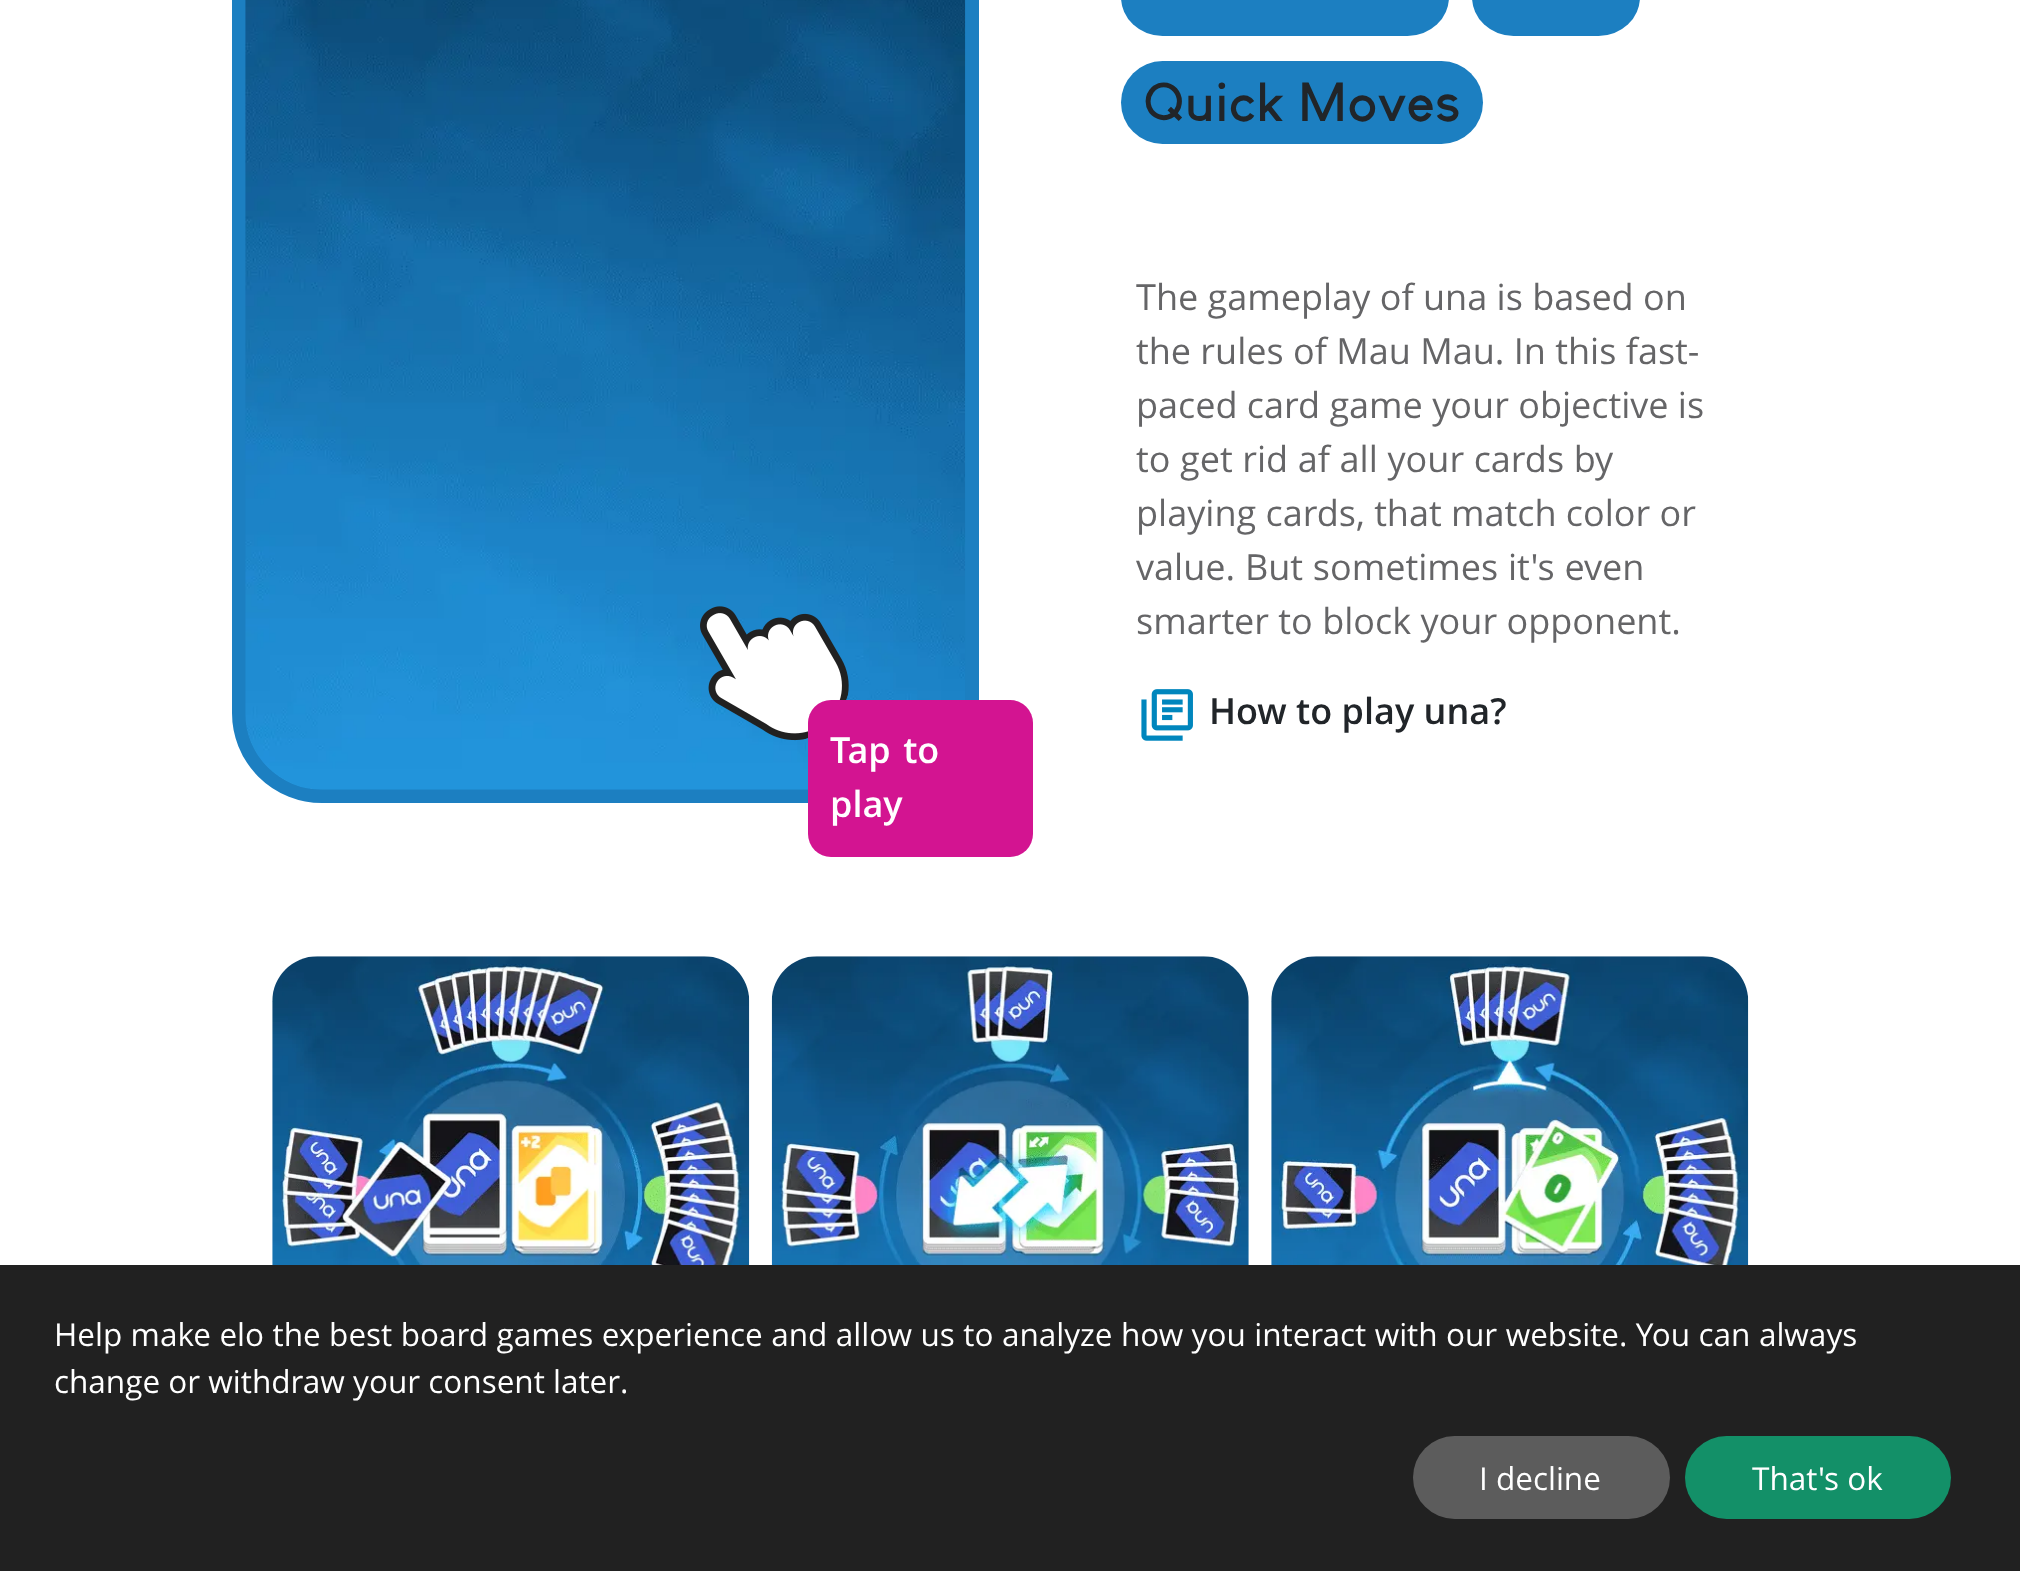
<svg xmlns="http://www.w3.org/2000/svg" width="2020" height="1571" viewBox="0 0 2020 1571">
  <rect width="100%" height="100%" fill="rgb(255,255,255)"/>
  <rect x="1121" y="-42" width="328" height="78" rx="41.5" fill="rgb(28,127,193)"/>
  <rect x="1472" y="-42" width="168" height="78" rx="41.5" fill="rgb(28,127,193)"/>
  <rect x="1121" y="61" width="362" height="83" rx="41.5" fill="rgb(28,127,193)"/>
  <text x="1143" y="121" font-family="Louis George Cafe" font-size="54" font-weight="bold" fill="rgb(33,37,41)">Quick Moves</text>
  <g font-family="Open Sans" font-size="36" fill="rgb(101,101,103)">
    <text>
      <tspan x="1136" y="310">The gameplay of una is based on</tspan>
      <tspan x="1136" y="364">the rules of Mau Mau. In this fast-</tspan>
      <tspan x="1136" y="418">paced card game your objective is</tspan>
      <tspan x="1136" y="472" word-spacing="0.25">to get rid af all your cards by</tspan>
      <tspan x="1136" y="526">playing cards, that match color or</tspan>
      <tspan x="1136" y="580" word-spacing="0.5">value. But sometimes it's even</tspan>
      <tspan x="1136" y="634">smarter to block your opponent.</tspan>
    </text>
  </g>
  <image x="1141" y="689" width="52" height="52" href="pic1.png"/>
  <text x="1209" y="724" font-family="Open Sans" font-size="36" font-weight="600" fill="rgb(33,37,41)">How to play una?</text>
  <rect x="239" y="-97" width="733" height="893" rx="83" fill="none" stroke="rgb(28,127,193)" stroke-width="14"/>
  <image x="245" y="0" width="721" height="790" href="pic2.png"/>
  <image x="700" y="606" width="149" height="135" href="pic3.png"/>
  <rect x="808" y="700" width="225" height="157" rx="23" fill="rgb(211,20,145)"/>
  <g font-family="Open Sans" font-size="36" font-weight="600" fill="rgb(255,255,255)">
    <text>
      <tspan x="830" y="763" word-spacing="3">Tap to</tspan>
      <tspan x="830" y="817">play</tspan>
    </text>
  </g>
  <image x="272" y="956" width="478" height="309" href="pic4.png"/>
  <image x="771" y="956" width="478" height="309" href="pic5.png"/>
  <image x="1271" y="956" width="478" height="309" href="pic6.png"/>
  <rect x="0" y="1265" width="2020" height="306" fill="rgb(33,33,33)"/>
  <g font-family="Open Sans" font-size="31.5" fill="rgb(255,255,255)">
    <text>
      <tspan x="54" y="1346" word-spacing="0.25">Help make elo the best board games experience and allow us to analyze how you interact with our website. You can always</tspan>
      <tspan x="54" y="1393">change or withdraw your consent later.</tspan>
    </text>
  </g>
  <rect x="1413" y="1436" width="257" height="83" rx="41.5" fill="rgb(92,92,92)"/>
  <text x="1479" y="1490" font-family="Open Sans" font-size="31.5" fill="rgb(255,255,255)">I decline</text>
  <rect x="1685" y="1436" width="266" height="83" rx="41.5" fill="rgb(19,144,104)"/>
  <text x="1752" y="1490" font-family="Open Sans" font-size="31.5" fill="rgb(255,255,255)">That's ok</text>
</svg>
